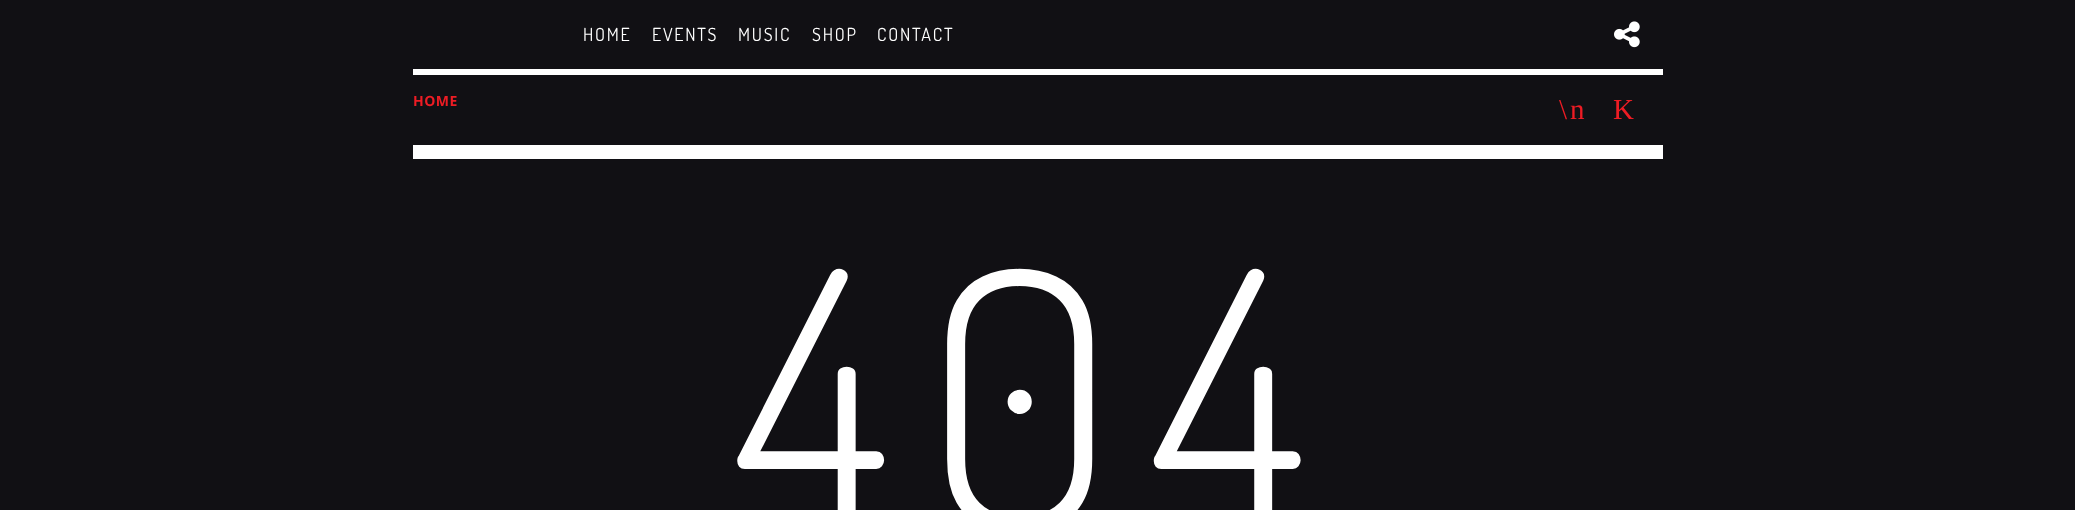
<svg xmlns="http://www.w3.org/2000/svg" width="2075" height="510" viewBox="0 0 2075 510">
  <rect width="100%" height="100%" fill="rgb(17,16,20)"/>
  <g font-family="Dosis" font-size="18" letter-spacing="1.75" fill="rgb(255,255,255)">
    <text x="583" y="41">HOME</text>
    <text x="652" y="41">EVENTS</text>
    <text x="738" y="41">MUSIC</text>
    <text x="812" y="41">SHOP</text>
    <text x="877" y="41">CONTACT</text>
  </g>
  <image x="1614" y="21" width="26" height="27" href="pic1.png"/>
  <rect x="413" y="69" width="1250" height="6" fill="rgb(255,255,255)"/>
  <text x="413" y="106" font-family="Open Sans" font-size="14" font-weight="bold" letter-spacing="0.5" fill="rgb(237,28,36)">HOME</text>
  <g font-family="Liberation Serif" font-size="29" letter-spacing="3" fill="rgb(237,28,36)">
    <text x="1559" y="119">\n</text>
    <text x="1613" y="119">K</text>
  </g>
  <rect x="413" y="145" width="1250" height="14" fill="rgb(255,255,255)"/>
  <text x="734" y="532" font-family="Dosis" font-size="360" font-weight="300" letter-spacing="36" fill="rgb(255,255,255)">404</text>
</svg>
